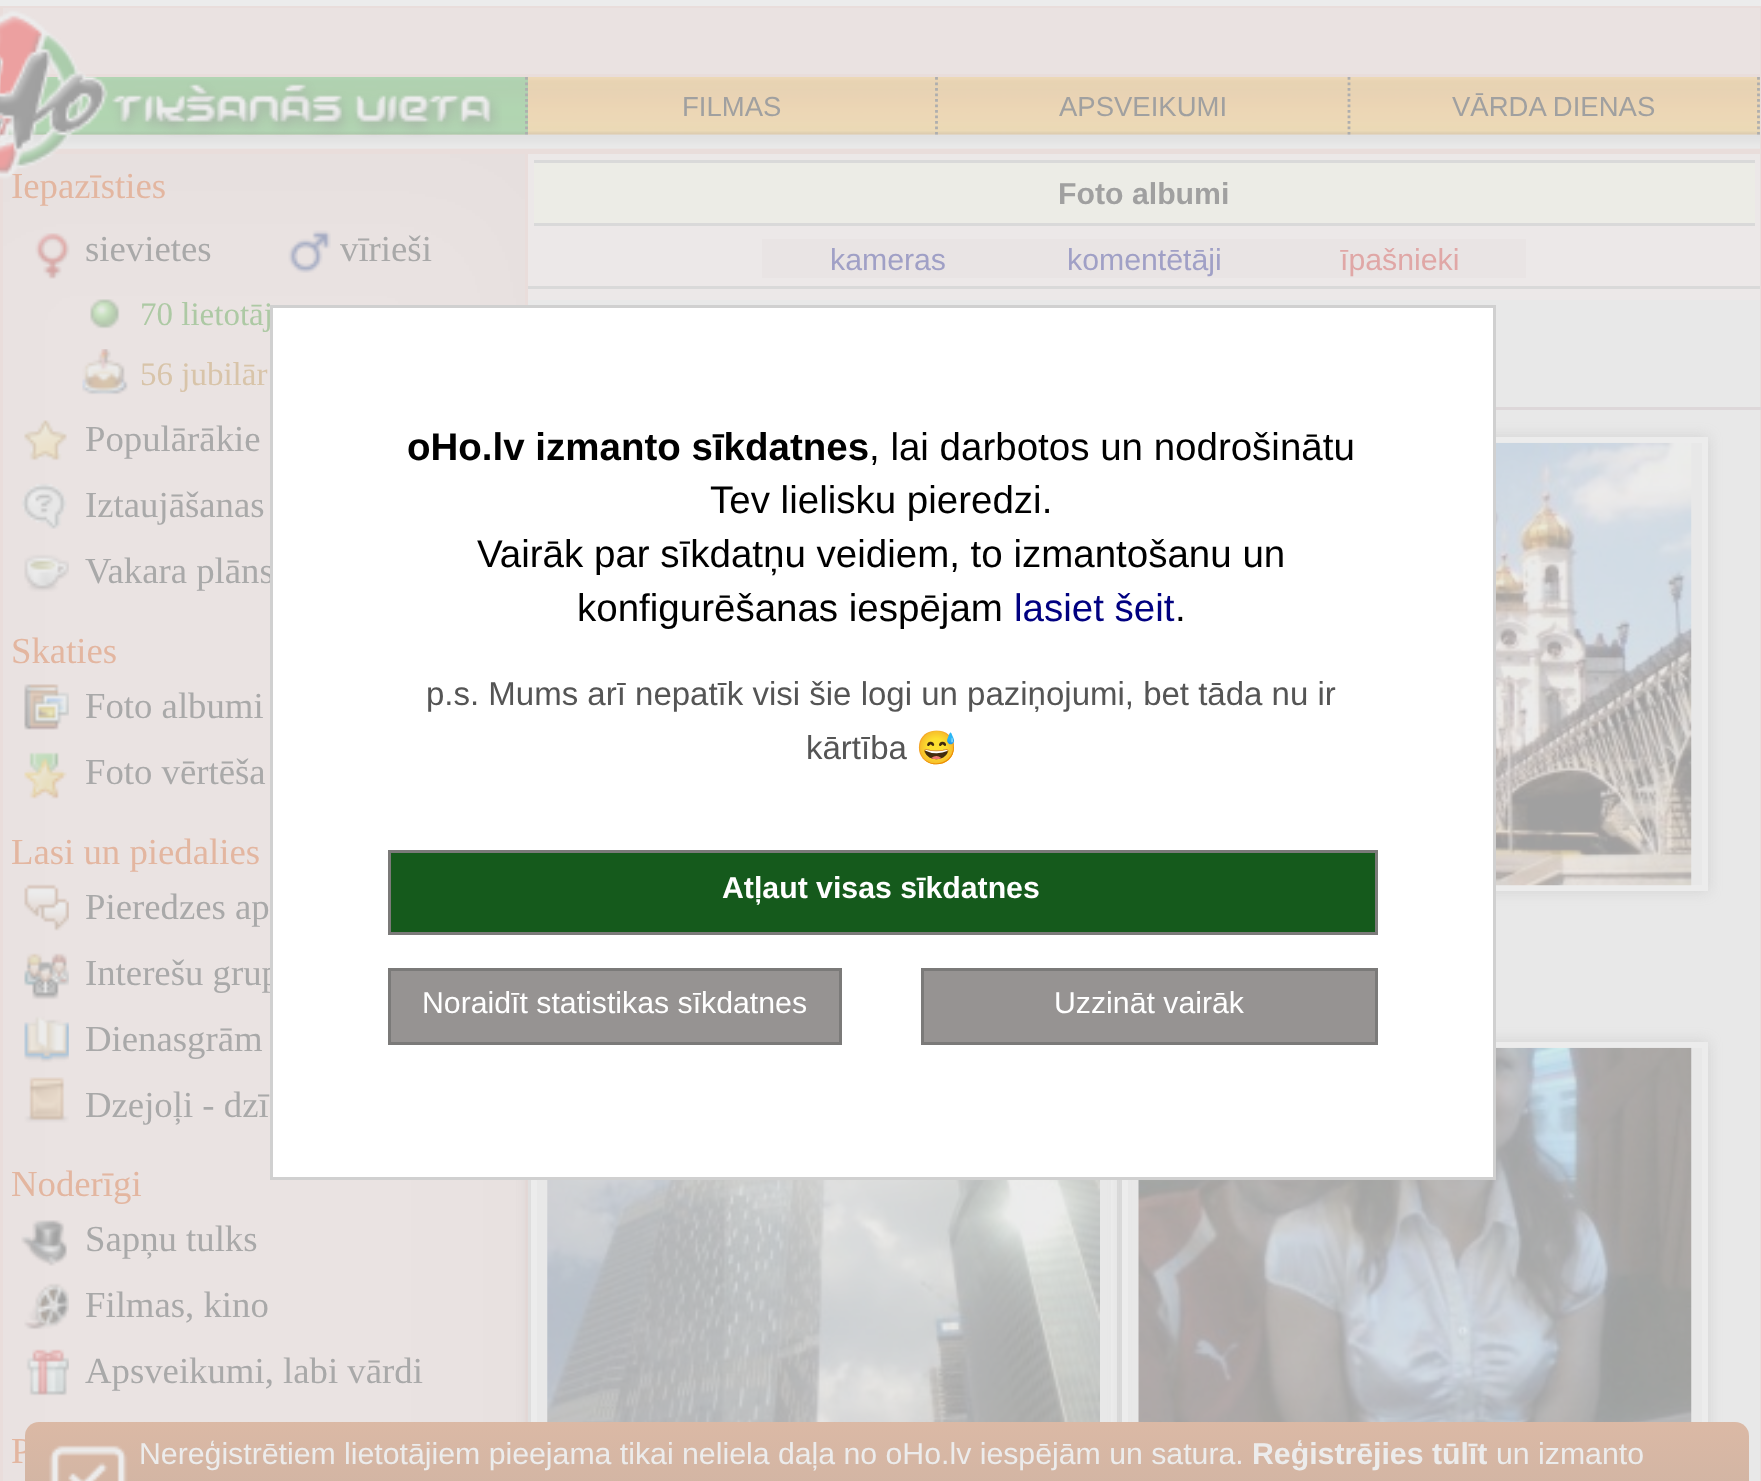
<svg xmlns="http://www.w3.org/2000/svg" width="1761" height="1481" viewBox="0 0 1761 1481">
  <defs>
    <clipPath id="clip1"><path d="M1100 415H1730V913H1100ZM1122 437H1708V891H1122Z" clip-rule="evenodd"/></clipPath>
    <clipPath id="clip2"><path d="M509 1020H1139V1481H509ZM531 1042H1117V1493H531Z" clip-rule="evenodd"/></clipPath>
    <clipPath id="clip3"><path d="M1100 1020H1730V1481H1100ZM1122 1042H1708V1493H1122Z" clip-rule="evenodd"/></clipPath>
    <linearGradient id="g1" gradientUnits="userSpaceOnUse" x1="887" y1="1422" x2="887" y2="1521"><stop offset="0" stop-color="rgb(219,185,165)"/><stop offset="1" stop-color="rgb(206,179,163)"/></linearGradient>
  </defs>
  <rect width="100%" height="100%" fill="rgb(236,236,236)"/>
  <rect x="0" y="6" width="1761" height="1475" fill="rgb(233,221,219)"/>
  <rect x="3" y="8" width="1757" height="66" fill="rgb(234,226,225)"/>
  <rect x="7" y="134" width="1753" height="15" fill="rgb(234,226,225)"/>
  <image x="7" y="77" width="1753" height="58" href="pic2.png"/>
  <image x="7" y="77" width="521" height="58" href="pic3.png"/>
  <path d="M526.5 77V135" fill="none" stroke="rgb(174,174,174)" stroke-width="2.8" stroke-dasharray="2.75 2.75"/>
  <path d="M936.5 77V135" fill="none" stroke="rgb(174,174,174)" stroke-width="2.8" stroke-dasharray="2.75 2.75"/>
  <path d="M1349 77V135" fill="none" stroke="rgb(174,174,174)" stroke-width="2.8" stroke-dasharray="2.75 2.75"/>
  <path d="M1758.5 77V135" fill="none" stroke="rgb(174,174,174)" stroke-width="2.8" stroke-dasharray="2.75 2.75"/>
  <image x="2" y="134" width="1758" height="15" href="pic4.png"/>
  <rect x="3" y="154" width="522" height="1327" fill="rgb(234,226,225)"/>
  <image x="3" y="154" width="522" height="1327" href="pic5.png"/>
  <text x="11" y="198" font-family="Liberation Serif" font-size="36.75" fill="rgb(227,182,160)">Iepazīsties</text>
  <image x="0" y="10" width="502" height="170" href="pic1.png"/>
  <g font-family="Liberation Sans" font-size="27.5" fill="rgb(160,160,160)">
    <text x="682" y="116">FILMAS</text>
    <text x="1059" y="116">APSVEIKUMI</text>
    <text x="1452" y="116">VĀRDA DIENAS</text>
  </g>
  <image x="35" y="233" width="35" height="46" href="pic6.png"/>
  <text x="85" y="261" font-family="Liberation Serif" font-size="36.75" fill="rgb(169,169,169)">sievietes</text>
  <image x="288" y="230" width="43" height="43" href="pic7.png"/>
  <text x="340" y="261" font-family="Liberation Serif" font-size="36.75" fill="rgb(169,169,169)">vīrieši</text>
  <image x="90" y="299" width="30" height="30" href="pic8.png"/>
  <text x="140" y="325" font-family="Liberation Serif" font-size="33" fill="rgb(173,201,164)">70 lietotāj</text>
  <image x="82" y="349" width="46" height="46" href="pic9.png"/>
  <text x="140" y="385" font-family="Liberation Serif" font-size="33" fill="rgb(216,196,169)">56 jubilār</text>
  <image x="24" y="420" width="43" height="41" href="pic10.png"/>
  <text x="85" y="451" font-family="Liberation Serif" font-size="36.75" fill="rgb(169,169,169)">Populārākie</text>
  <image x="21" y="483" width="46" height="46" href="pic11.png"/>
  <text x="85" y="517" font-family="Liberation Serif" font-size="36.75" fill="rgb(169,169,169)">Iztaujāšanas</text>
  <image x="24" y="554" width="45" height="38" href="pic12.png"/>
  <text x="85" y="583" font-family="Liberation Serif" font-size="36.75" fill="rgb(169,169,169)">Vakara plāns</text>
  <text x="11" y="663" font-family="Liberation Serif" font-size="36.75" fill="rgb(227,182,160)">Skaties</text>
  <image x="24" y="684" width="45" height="46" href="pic13.png"/>
  <text x="85" y="718" font-family="Liberation Serif" font-size="36.75" fill="rgb(169,169,169)">Foto albumi</text>
  <image x="24" y="752" width="43" height="47" href="pic14.png"/>
  <text x="85" y="784" font-family="Liberation Serif" font-size="36.75" fill="rgb(169,169,169)">Foto vērtēša</text>
  <text x="11" y="864" font-family="Liberation Serif" font-size="36.75" fill="rgb(227,182,160)">Lasi un piedalies</text>
  <image x="24" y="884" width="45" height="47" href="pic15.png"/>
  <text x="85" y="919" font-family="Liberation Serif" font-size="36.75" fill="rgb(169,169,169)">Pieredzes ap</text>
  <image x="24" y="953" width="45" height="47" href="pic16.png"/>
  <text x="85" y="985" font-family="Liberation Serif" font-size="36.75" fill="rgb(169,169,169)">Interešu grup</text>
  <image x="24" y="1016" width="45" height="47" href="pic17.png"/>
  <text x="85" y="1051" font-family="Liberation Serif" font-size="36.75" fill="rgb(169,169,169)">Dienasgrām</text>
  <image x="24" y="1077" width="45" height="46" href="pic18.png"/>
  <text x="85" y="1117" font-family="Liberation Serif" font-size="36.75" fill="rgb(169,169,169)">Dzejoļi - dzī</text>
  <text x="11" y="1196" font-family="Liberation Serif" font-size="36.75" fill="rgb(227,182,160)">Noderīgi</text>
  <image x="21" y="1220" width="46" height="46" href="pic19.png"/>
  <text x="85" y="1251" font-family="Liberation Serif" font-size="36.75" fill="rgb(169,169,169)">Sapņu tulks</text>
  <image x="24" y="1283" width="45" height="47" href="pic20.png"/>
  <text x="85" y="1317" font-family="Liberation Serif" font-size="36.75" fill="rgb(169,169,169)">Filmas, kino</text>
  <image x="26" y="1349" width="43" height="47" href="pic21.png"/>
  <text x="85" y="1383" font-family="Liberation Serif" font-size="36.75" fill="rgb(169,169,169)">Apsveikumi, labi vārdi</text>
  <text x="11" y="1463" font-family="Liberation Serif" font-size="36.75" fill="rgb(227,182,160)">P</text>
  <rect x="528" y="154" width="1232" height="146" fill="rgb(236,232,232)"/>
  <rect x="534" y="163" width="1221" height="60" fill="rgb(236,236,230)"/>
  <rect x="534" y="160" width="1221" height="3" fill="rgb(217,217,217)"/>
  <rect x="534" y="223" width="1221" height="3" fill="rgb(217,217,217)"/>
  <text x="1058" y="204" font-family="Liberation Sans" font-size="30.25" font-weight="bold" fill="rgb(160,160,160)">Foto albumi</text>
  <rect x="528" y="286" width="1232" height="3" fill="rgb(217,217,217)"/>
  <rect x="762" y="239" width="764" height="39" fill="rgb(233,228,228)"/>
  <g font-family="Liberation Sans" font-size="30.25" fill="rgb(160,160,198)">
    <text x="830" y="270">kameras</text>
    <text x="1067" y="270">komentētāji</text>
  </g>
  <text x="1340" y="270" font-family="Liberation Sans" font-size="30.25" fill="rgb(224,167,166)">īpašnieki</text>
  <rect x="528" y="300" width="1232" height="1181" fill="rgb(232,232,232)"/>
  <rect x="1496" y="407" width="265" height="3" fill="rgb(221,215,217)"/>
  <g clip-path="url(#clip1)">
    <rect x="1122" y="437" width="586" height="454" fill="rgba(160,160,160,0.3)" filter="blur(7px)"/>
  </g>
  <rect x="1125" y="440" width="580" height="448" fill="none" stroke="rgb(236,236,236)" stroke-width="6"/>
  <image x="1496" y="442" width="196" height="444" href="pic22.png"/>
  <g clip-path="url(#clip2)">
    <rect x="531" y="1042" width="586" height="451" fill="rgba(160,160,160,0.3)" filter="blur(7px)"/>
  </g>
  <rect x="534" y="1045" width="580" height="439" fill="none" stroke="rgb(236,236,236)" stroke-width="6"/>
  <image x="547" y="1180" width="553" height="242" href="pic23.png"/>
  <g clip-path="url(#clip3)">
    <rect x="1122" y="1042" width="586" height="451" fill="rgba(160,160,160,0.3)" filter="blur(7px)"/>
  </g>
  <rect x="1125" y="1045" width="580" height="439" fill="none" stroke="rgb(236,236,236)" stroke-width="6"/>
  <image x="1138" y="1047" width="554" height="375" href="pic24.png"/>
  <rect x="271.5" y="306.5" width="1223" height="872" fill="rgb(255,255,255)" stroke="rgb(208,208,208)" stroke-width="3"/>
  <text x="407" y="460" font-family="Liberation Sans" font-size="38.5" font-weight="bold" fill="rgb(0,0,0)">oHo.lv izmanto sīkdatnes</text>
  <g font-family="Liberation Sans" font-size="38.5" fill="rgb(0,0,0)">
    <text x="869" y="460">, lai darbotos un nodrošinātu</text>
    <text x="710" y="513">Tev lielisku pieredzi.</text>
    <text x="477" y="567">Vairāk par sīkdatņu veidiem, to izmantošanu un</text>
    <text x="577" y="621">konfigurēšanas iespējam</text>
  </g>
  <text x="1014" y="621" font-family="Liberation Sans" font-size="38.5" fill="rgb(0,0,128)">lasiet šeit</text>
  <text x="1175" y="621" font-family="Liberation Sans" font-size="38.5" fill="rgb(0,0,0)">.</text>
  <g font-family="Liberation Sans" font-size="33" fill="rgb(85,85,85)">
    <text x="426" y="705">p.s. Mums arī nepatīk visi šie logi un paziņojumi, bet tāda nu ir</text>
    <text x="806" y="759">kārtība</text>
  </g>
  <text x="916" y="759" font-family="Noto Color Emoji" font-size="33" fill="rgb(85,85,85)">😅</text>
  <rect x="389.5" y="851.5" width="987" height="82" fill="rgb(21,90,28)" stroke="rgb(123,122,121)" stroke-width="3"/>
  <text x="722" y="898" font-family="Liberation Sans" font-size="30.25" font-weight="bold" fill="rgb(255,255,255)">Atļaut visas sīkdatnes</text>
  <rect x="389.5" y="969.5" width="451" height="74" fill="rgb(150,147,146)" stroke="rgb(123,122,121)" stroke-width="3"/>
  <text x="422" y="1013" font-family="Liberation Sans" font-size="30.25" fill="rgb(255,255,255)">Noraidīt statistikas sīkdatnes</text>
  <rect x="922.5" y="969.5" width="454" height="74" fill="rgb(150,147,146)" stroke="rgb(123,122,121)" stroke-width="3"/>
  <text x="1054" y="1013" font-family="Liberation Sans" font-size="30.25" fill="rgb(255,255,255)">Uzzināt vairāk</text>
  <rect x="25" y="1422" width="1724" height="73" rx="14" fill="url(#g1)"/>
  <image x="48" y="1445" width="80" height="36" href="pic25.png"/>
  <text x="139" y="1464" font-family="Liberation Sans" font-size="30.25" fill="rgb(236,236,236)">Nereģistrētiem lietotājiem pieejama tikai neliela daļa no oHo.lv iespējām un satura.</text>
  <text x="1252" y="1464" font-family="Liberation Sans" font-size="30.25" font-weight="bold" fill="rgb(236,236,236)">Reģistrējies tūlīt</text>
  <text x="1496" y="1464" font-family="Liberation Sans" font-size="30.25" fill="rgb(236,236,236)">un izmanto</text>
</svg>
